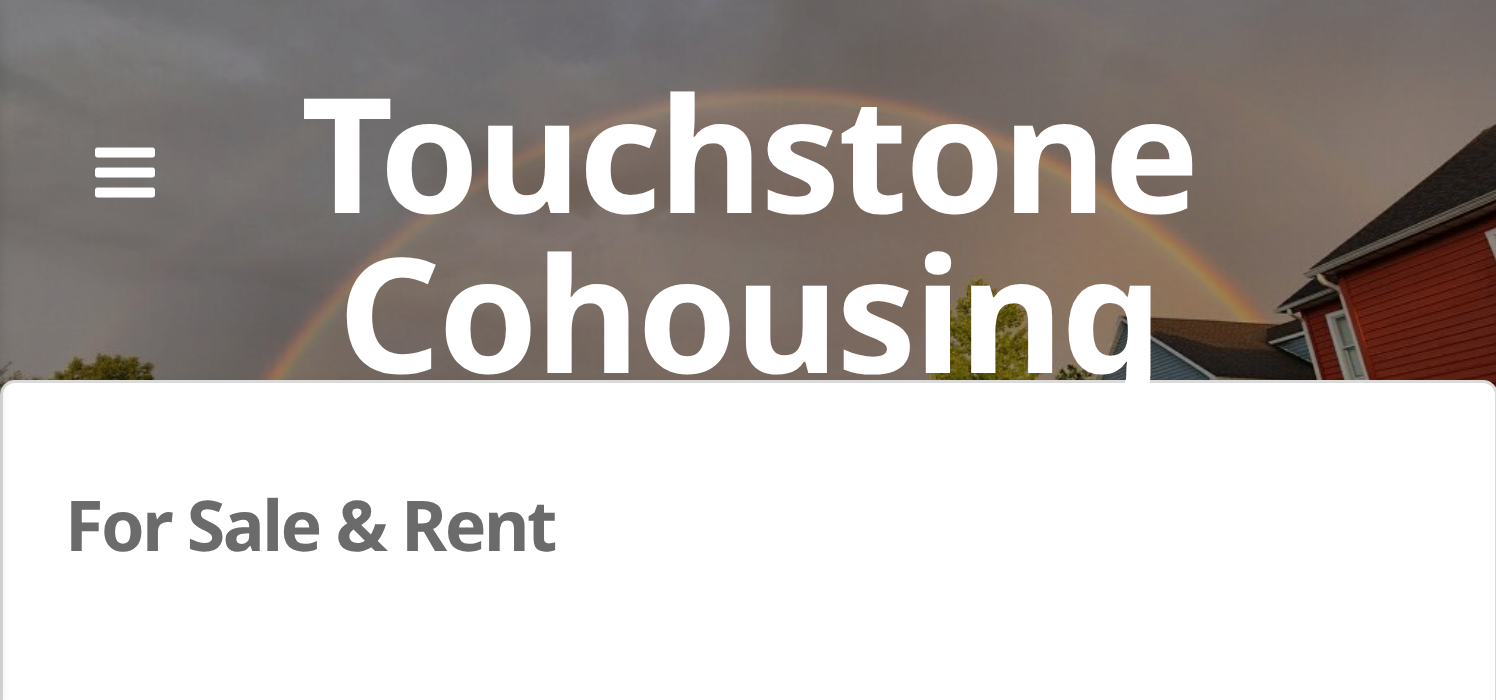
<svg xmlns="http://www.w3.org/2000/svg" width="1496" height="700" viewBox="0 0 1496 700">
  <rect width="100%" height="100%" fill="rgb(255,255,255)"/>
  <image x="0" y="0" width="1496" height="395" href="pic2.png"/>
  <image x="95" y="147" width="60" height="51" href="pic1.png"/>
  <rect x="0" y="385" width="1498" height="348" rx="15" fill="rgba(0,0,0,0.11)" filter="blur(6px)"/>
  <rect x="1.5" y="381.5" width="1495" height="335" rx="13.5" fill="rgb(255,255,255)" stroke="rgb(218,218,218)" stroke-width="3"/>
  <rect x="-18" y="5" width="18" height="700" fill="rgba(0,0,0,0.11)" filter="blur(6px)"/>
  <g font-family="Noto Sans" font-size="160" font-weight="bold" letter-spacing="-2.5" fill="rgb(255,255,255)">
    <text x="301" y="213">Touchstone</text>
    <text x="338" y="373">Cohousing</text>
  </g>
  <text x="65" y="551" font-family="Noto Sans" font-size="70" font-weight="bold" letter-spacing="-2.5" fill="rgb(107,107,107)">For Sale &amp; Rent</text>
</svg>
